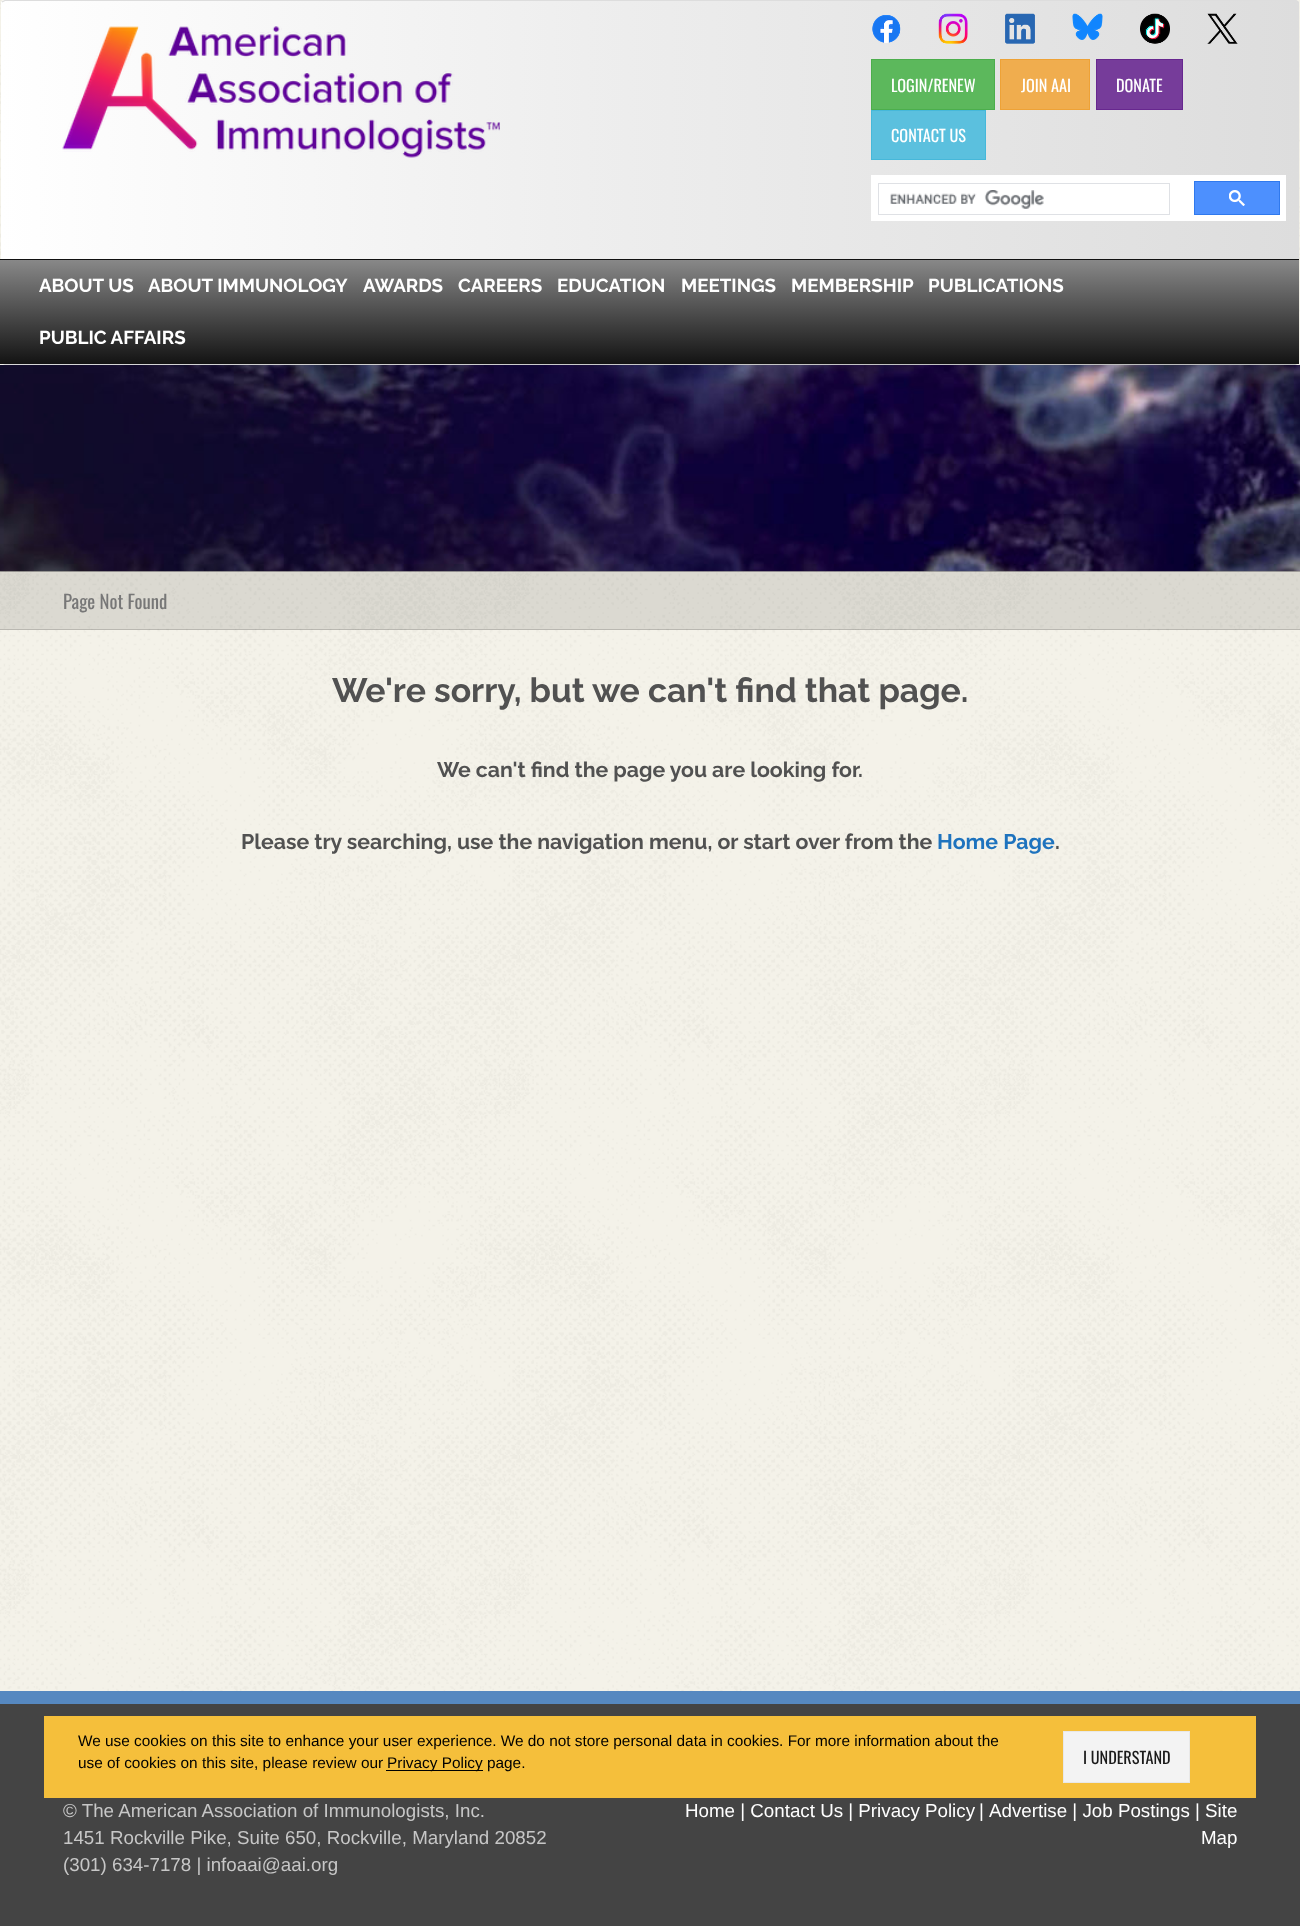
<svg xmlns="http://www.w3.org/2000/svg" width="1300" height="1926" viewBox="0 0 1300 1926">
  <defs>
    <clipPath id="clip1"><rect x="0" y="0" width="1300" height="365" rx="5"/></clipPath>
    <linearGradient id="g1" gradientUnits="userSpaceOnUse" x1="1.2" y1="183" x2="1299" y2="182"><stop offset="0" stop-color="rgb(255,255,255)"/><stop offset="0.45" stop-color="rgb(238,238,238)"/><stop offset="1" stop-color="rgb(221,221,221)"/></linearGradient>
    <linearGradient id="g2" gradientUnits="userSpaceOnUse" x1="638" y1="260" x2="638" y2="364"><stop offset="0" stop-color="rgb(136,136,136)"/><stop offset="1" stop-color="rgb(19,19,19)"/></linearGradient>
  </defs>
  <rect width="100%" height="100%" fill="rgb(255,255,255)"/>
  <image x="0" y="0" width="1300" height="1691" href="pic1.png"/>
  <g clip-path="url(#clip1)">
    <rect x="1" y="0" width="1298" height="365" fill="url(#g1)"/>
  </g>
  <path d="M2 2L5 .5H1295L1298 2" fill="none" stroke="rgb(221,221,221)" stroke-width="1.2"/>
  <image x="0" y="365" width="1300" height="207" href="pic11.png"/>
  <path d="M1298 363L1295 364.5H5L2 363" fill="none" stroke="rgba(0,0,0,0.15)" stroke-width="1.2"/>
  <image x="62" y="26" width="438" height="132" href="pic2.png"/>
  <image x="872" y="15" width="29" height="28" href="pic3.png"/>
  <image x="938" y="13" width="30" height="31" href="pic4.png"/>
  <image x="1005" y="13" width="30" height="31" href="pic5.png"/>
  <image x="1072" y="13" width="31" height="27" href="pic6.png"/>
  <image x="1140" y="13" width="30" height="31" href="pic7.png"/>
  <image x="1207" y="13" width="31" height="31" href="pic8.png"/>
  <rect x="871.5" y="59.5" width="123" height="50" fill="rgb(92,184,92)" stroke="rgb(76,174,76)"/>
  <text x="891" y="92" font-family="Oswald" font-size="16.25" fill="rgb(255,255,255)">LOGIN/RENEW</text>
  <rect x="1000.5" y="59.5" width="89" height="50" fill="rgb(240,173,78)" stroke="rgb(238,162,54)"/>
  <text x="1021" y="92" font-family="Oswald" font-size="16.25" fill="rgb(255,255,255)">JOIN AAI</text>
  <rect x="1096.5" y="59.5" width="86" height="50" fill="rgb(118,60,154)" stroke="rgb(103,39,143)"/>
  <text x="1116" y="92" font-family="Oswald" font-size="16.25" fill="rgb(255,255,255)">DONATE</text>
  <rect x="871.5" y="110.5" width="114" height="49" fill="rgb(91,192,222)" stroke="rgb(70,184,218)"/>
  <text x="891" y="142" font-family="Oswald" font-size="16.25" fill="rgb(255,255,255)">CONTACT US</text>
  <rect x="871" y="175" width="415" height="46" fill="rgb(255,255,255)"/>
  <rect x="878.5" y="183.5" width="291" height="31" fill="none" stroke="rgb(223,225,229)"/>
  <image x="890" y="190" width="154" height="19" href="pic9.png"/>
  <rect x="1194.5" y="181.5" width="85" height="33" fill="rgb(77,144,254)" stroke="rgb(48,121,237)"/>
  <image x="1229" y="190" width="16" height="16" href="pic10.png"/>
  <rect x="0" y="260" width="1299" height="104" fill="url(#g2)"/>
  <rect x="0" y="259" width="1299" height="1" fill="rgb(17,17,17)"/>
  <g font-family="Raleway" font-size="18.75" font-weight="bold" fill="rgb(255,255,255)">
    <text x="39" y="292">ABOUT US</text>
    <text x="148" y="292">ABOUT IMMUNOLOGY</text>
    <text x="363" y="292">AWARDS</text>
    <text x="458" y="292">CAREERS</text>
    <text x="557" y="292">EDUCATION</text>
    <text x="681" y="292">MEETINGS</text>
    <text x="791" y="292">MEMBERSHIP</text>
    <text x="928" y="292">PUBLICATIONS</text>
    <text x="39" y="344">PUBLIC AFFAIRS</text>
  </g>
  <rect x="0" y="571" width="1300" height="59" fill="rgba(0,0,0,0.1)"/>
  <rect x="0" y="571" width="1300" height="1" fill="rgba(0,0,0,0.15)"/>
  <rect x="0" y="629" width="1300" height="1" fill="rgba(0,0,0,0.15)"/>
  <text x="63" y="609" font-family="Oswald" font-size="18.75" fill="rgb(119,119,119)">Page Not Found</text>
  <text x="332" y="702" font-family="Raleway" font-size="33.75" font-weight="bold" fill="rgb(81,81,81)">We're sorry, but we can't find that page.</text>
  <g font-family="Raleway" font-size="21.25" font-weight="bold" fill="rgb(81,81,81)">
    <text x="437" y="777">We can't find the page you are looking for.</text>
    <text x="241" y="849">Please try searching, use the navigation menu, or start over from the</text>
  </g>
  <text x="937" y="849" font-family="Raleway" font-size="21.25" font-weight="bold" fill="rgb(30,115,190)">Home Page</text>
  <text x="1055" y="849" font-family="Raleway" font-size="21.25" font-weight="bold" fill="rgb(81,81,81)">.</text>
  <rect x="0" y="1704" width="1300" height="222" fill="rgb(68,68,68)"/>
  <rect x="0" y="1691" width="1300" height="13" fill="rgb(86,136,192)"/>
  <rect x="44" y="1716" width="1212" height="82" fill="rgb(245,191,59)"/>
  <g font-family="Liberation Sans" font-size="15.38" fill="rgb(0,0,0)">
    <text>
      <tspan x="78" y="1746">We use cookies on this site to enhance your user experience. We do not store personal data in cookies. For more information about the</tspan>
      <tspan x="78" y="1768">use of cookies on this site, please review our</tspan>
    </text>
  </g>
  <rect x="386" y="1770" width="97" height="1" fill="rgb(0,0,0)"/>
  <text x="387" y="1768" font-family="Liberation Sans" font-size="15.38" fill="rgb(0,0,0)">Privacy Policy page.</text>
  <rect x="1063.5" y="1731.5" width="126" height="51" fill="rgb(243,243,243)" stroke="rgb(232,232,232)"/>
  <text x="1083" y="1764" font-family="Oswald" font-size="16.25" fill="rgb(26,26,26)">I UNDERSTAND</text>
  <g font-family="Liberation Sans" font-size="18.75" fill="rgb(199,199,199)">
    <text>
      <tspan x="63" y="1817">© The American Association of Immunologists, Inc.</tspan>
      <tspan x="63" y="1844">1451 Rockville Pike, Suite 650, Rockville, Maryland 20852</tspan>
      <tspan x="63" y="1871">(301) 634-7178 | infoaai@aai.org</tspan>
    </text>
  </g>
  <g font-family="Liberation Sans" font-size="18.75" fill="rgb(255,255,255)">
    <text x="685" y="1817">Home | Contact Us | Privacy Policy</text>
    <text x="979" y="1817">|</text>
    <text x="989" y="1817">Advertise | Job Postings | Site</text>
    <text x="1201" y="1844">Map</text>
  </g>
</svg>
